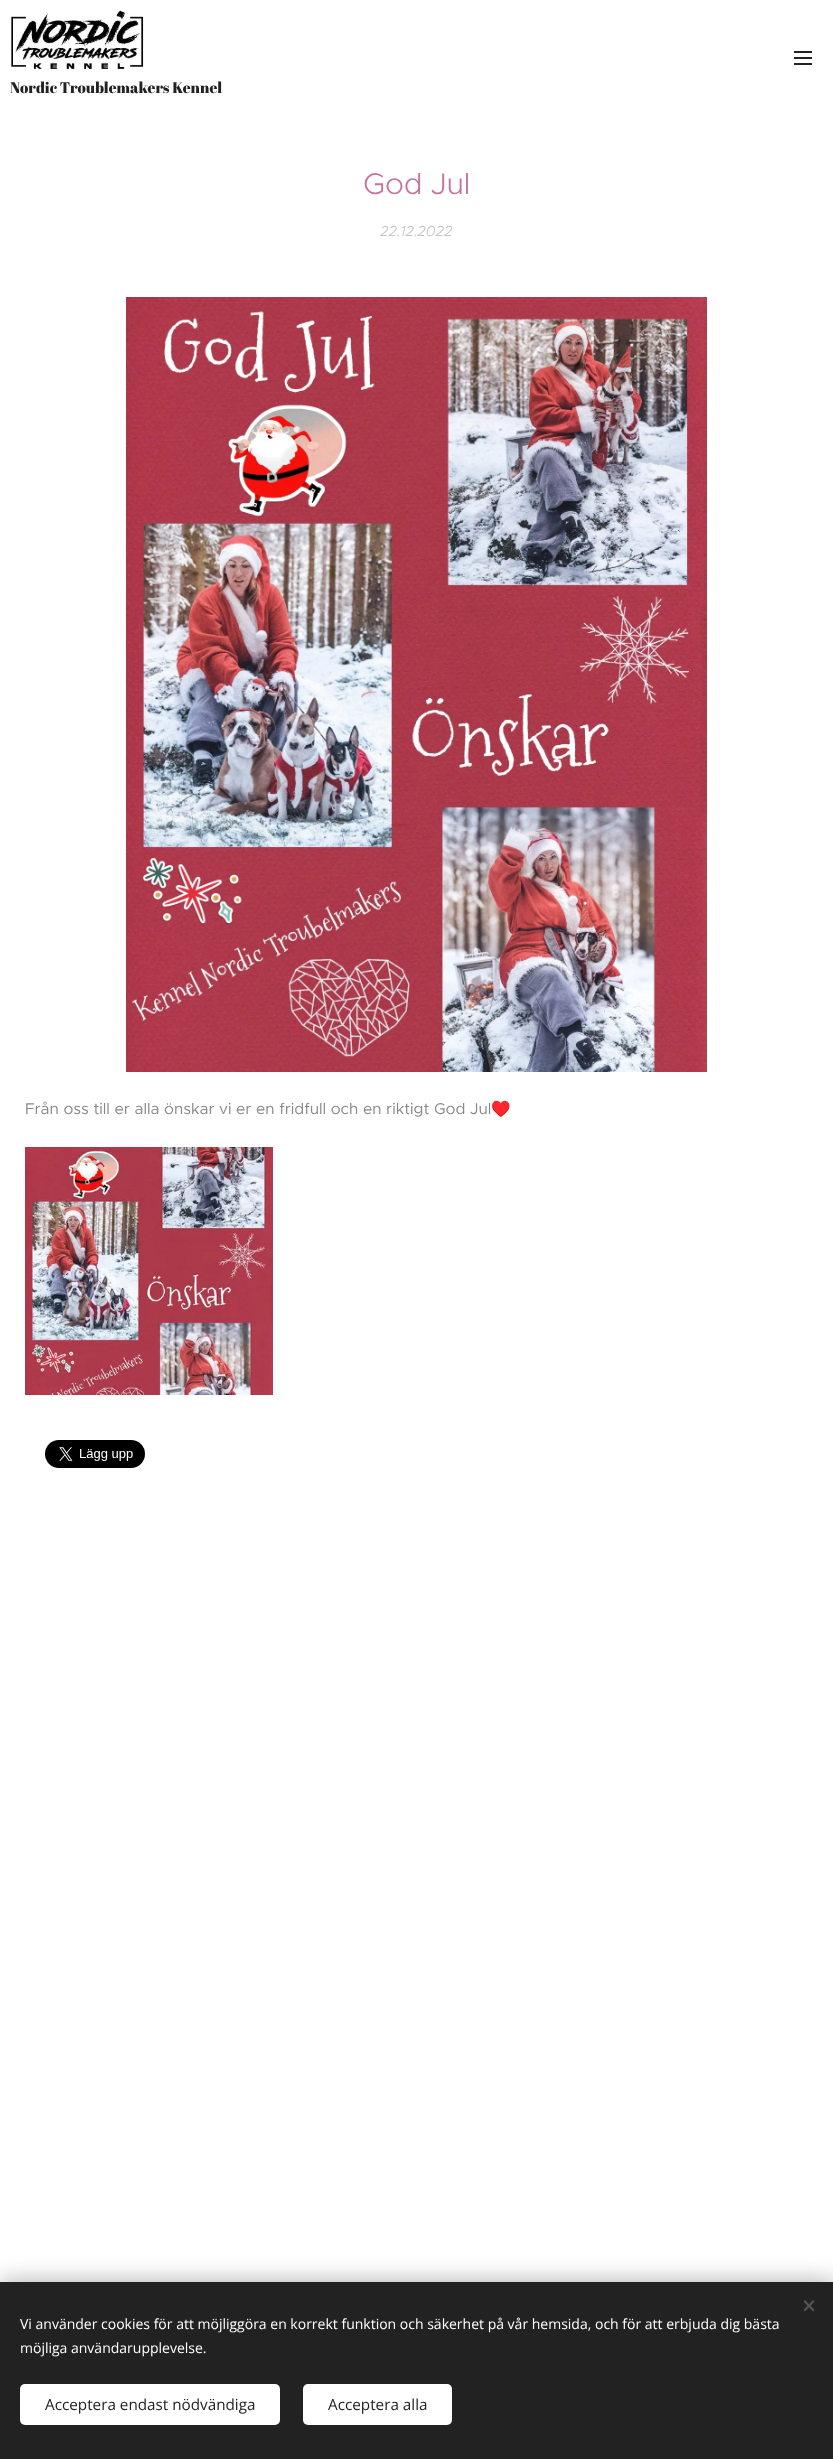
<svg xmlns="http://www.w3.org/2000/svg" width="833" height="2459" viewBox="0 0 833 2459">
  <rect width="100%" height="100%" fill="rgb(255,255,255)"/>
  <rect x="794" y="57" width="18" height="2" fill="rgb(34,34,34)"/>
  <rect x="794" y="51" width="18" height="2" fill="rgb(34,34,34)"/>
  <rect x="794" y="63" width="18" height="2" fill="rgb(34,34,34)"/>
  <image x="10" y="10" width="134" height="60" href="pic1.png"/>
  <text x="10" y="93" font-family="Abril Fatface" font-size="15.25" fill="rgb(34,34,34)">Nordic Troublemakers Kennel</text>
  <text x="363" y="194" font-family="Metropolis" font-size="30" font-weight="300" letter-spacing="-0.25" fill="rgb(198,115,158)">God Jul</text>
  <text x="380" y="236" font-family="Metropolis" font-size="14.5" font-weight="300" font-style="italic" fill="rgb(195,195,195)">22.12.2022</text>
  <image x="126" y="297" width="581" height="775" href="pic2.png"/>
  <text x="25" y="1114" font-family="Metropolis" font-size="15.7" fill="rgb(136,136,136)">Från oss till er alla önskar vi er en fridfull och en riktigt God Jul</text>
  <text x="491" y="1114" font-family="Noto Color Emoji" font-size="15.7" fill="rgb(136,136,136)">♥️</text>
  <image x="25" y="1147" width="248" height="248" href="pic3.png"/>
  <image x="45" y="1440" width="100" height="28" href="pic4.png"/>
  <rect x="0" y="2282" width="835" height="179" fill="rgba(0,0,0,0.33)" filter="blur(12.5px)"/>
  <rect x="0" y="2282" width="833" height="177" fill="rgb(34,34,34)"/>
  <path d="M803.5 2310L813 2300L814.5 2301.5L805 2311.5Z" fill="rgb(85,85,85)"/>
  <path d="M805 2300L814.5 2310L813 2311.5L803.5 2301.5Z" fill="rgb(85,85,85)"/>
  <g font-family="Open Sans" font-size="14" fill="rgb(255,255,255)">
    <text>
      <tspan x="20" y="2329">Vi använder cookies för att möjliggöra en korrekt funktion och säkerhet på vår hemsida, och för att erbjuda dig bästa</tspan>
      <tspan x="20" y="2353">möjliga användarupplevelse.</tspan>
    </text>
  </g>
  <rect x="20" y="2384" width="260" height="41" rx="5" fill="rgb(255,255,255)"/>
  <text x="45" y="2410" font-family="Open Sans" font-size="15.25" fill="rgb(34,34,34)">Acceptera endast nödvändiga</text>
  <rect x="303" y="2384" width="149" height="41" rx="5" fill="rgb(255,255,255)"/>
  <text x="328" y="2410" font-family="Open Sans" font-size="15.25" fill="rgb(34,34,34)">Acceptera alla</text>
</svg>
